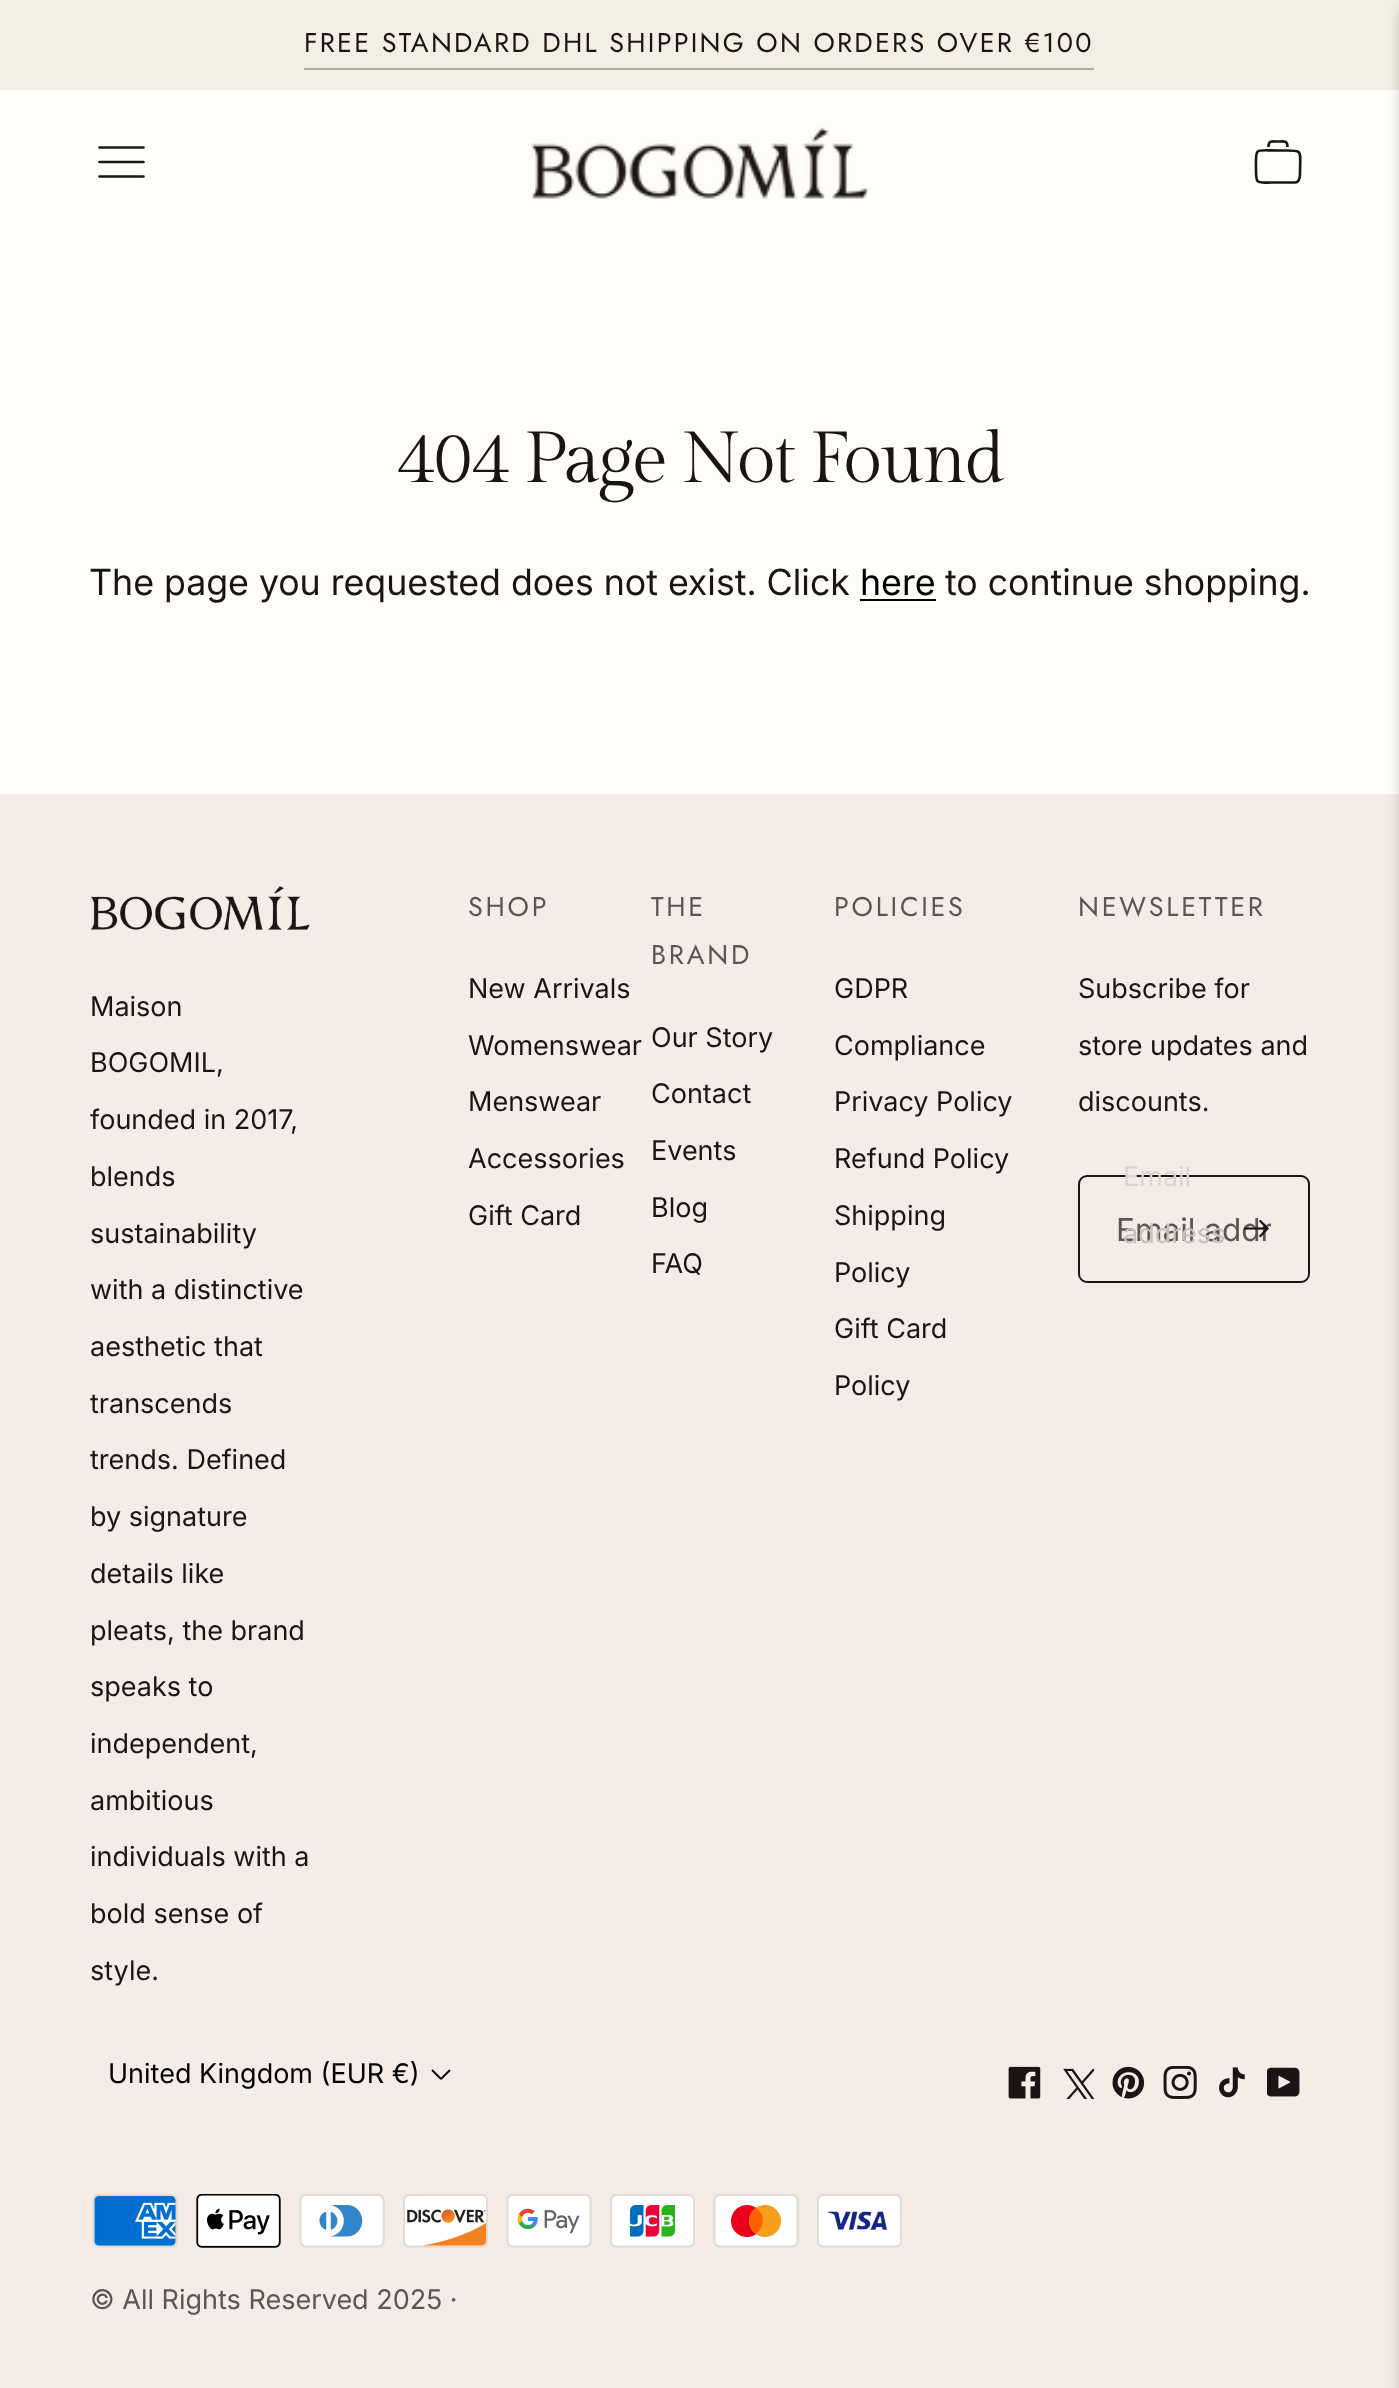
<svg xmlns="http://www.w3.org/2000/svg" width="1399" height="2388" viewBox="0 0 1399 2388">
  <defs>
    <clipPath id="clip1"><rect x="1116" y="1211" width="155" height="38"/></clipPath>
  </defs>
  <rect width="100%" height="100%" fill="rgb(255,253,250)"/>
  <rect x="0" y="0" width="1399" height="90" fill="rgb(243,239,227)"/>
  <rect x="0" y="794" width="1399" height="1594" fill="rgb(245,237,229)"/>
  <rect x="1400" y="9" width="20" height="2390" fill="rgba(0,0,0,0.1)" filter="blur(7px)"/>
  <text x="304" y="52" font-family="Jost" font-size="27" letter-spacing="2.25" fill="rgb(28,20,20)">FREE STANDARD DHL SHIPPING ON ORDERS OVER €100</text>
  <rect x="304" y="68" width="790" height="2" fill="rgb(178,173,165)"/>
  <path d="M99.5 162H143.5M99.5 147.5H143.5M99.5 176.5H143.5" fill="none" stroke="rgb(23,23,23)" stroke-width="2.6" stroke-linecap="round" stroke-linejoin="round"/>
  <image x="531" y="127" width="338" height="72" href="pic1.png"/>
  <path d="M1295 182.5H1272.5C1257 182.5 1256 185 1256 170C1256 146.5 1253.5 150.5 1278 150.5C1304.5 150.5 1300 147.5 1300 174C1300 177.5 1300 182.5 1295 182.5ZM1287.5 147C1287.5 140 1283.5 141.5 1278 141.5C1272 141.5 1268.5 140 1268.5 147" fill="none" stroke="rgb(23,23,23)" stroke-width="2.6"/>
  <rect x="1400" y="9" width="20" height="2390" fill="rgba(0,0,0,0.1)" filter="blur(7px)"/>
  <text x="396" y="482" font-family="Gilda Display" font-size="72" letter-spacing="-2.25" fill="rgb(28,20,20)">404 Page Not Found</text>
  <text x="89" y="595" font-family="Inter" font-size="36" fill="rgb(28,20,20)">The page you requested does not exist. Click</text>
  <text x="860" y="595" font-family="Inter" font-size="36" fill="rgb(0,0,0)">here</text>
  <rect x="860" y="599" width="76" height="2" fill="rgb(0,0,0)"/>
  <text x="945" y="595" font-family="Inter" font-size="36" fill="rgb(28,20,20)">to continue shopping.</text>
  <image x="90" y="886" width="220" height="44" href="pic2.png"/>
  <g font-family="'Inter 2'" font-size="27" fill="rgb(28,20,20)">
    <text x="90" y="1016">Maison</text>
    <text x="90" y="1072">BOGOMIL,</text>
    <text x="90" y="1129">founded in 2017,</text>
    <text x="90" y="1186">blends</text>
    <text x="90" y="1243">sustainability</text>
    <text x="90" y="1299">with a distinctive</text>
    <text x="90" y="1356">aesthetic that</text>
    <text x="90" y="1413">transcends</text>
    <text x="90" y="1469">trends. Defined</text>
    <text x="90" y="1526">by signature</text>
    <text x="90" y="1583">details like</text>
    <text x="90" y="1640">pleats, the brand</text>
    <text x="90" y="1696">speaks to</text>
    <text x="90" y="1753">independent,</text>
    <text x="90" y="1810">ambitious</text>
    <text x="90" y="1866">individuals with a</text>
    <text x="90" y="1923">bold sense of</text>
    <text x="90" y="1980">style.</text>
  </g>
  <text x="468" y="916" font-family="Jost" font-size="27" letter-spacing="2.75" fill="rgb(93,85,83)">SHOP</text>
  <g font-family="'Inter 2'" font-size="27" fill="rgb(28,20,20)">
    <text x="468" y="998">New Arrivals</text>
    <text x="468" y="1055">Womenswear</text>
    <text x="468" y="1111">Menswear</text>
    <text x="468" y="1168">Accessories</text>
    <text x="468" y="1225">Gift Card</text>
  </g>
  <g font-family="Jost" font-size="27" letter-spacing="2.75" fill="rgb(93,85,83)">
    <text>
      <tspan x="651" y="916">THE</tspan>
      <tspan x="651" y="964">BRAND</tspan>
    </text>
  </g>
  <g font-family="'Inter 2'" font-size="27" fill="rgb(28,20,20)">
    <text x="651" y="1047">Our Story</text>
    <text x="651" y="1103">Contact</text>
    <text x="651" y="1160">Events</text>
    <text x="651" y="1217">Blog</text>
    <text x="651" y="1273">FAQ</text>
  </g>
  <text x="834" y="916" font-family="Jost" font-size="27" letter-spacing="2.75" fill="rgb(93,85,83)">POLICIES</text>
  <g font-family="'Inter 2'" font-size="27" fill="rgb(28,20,20)">
    <text x="834" y="998">GDPR</text>
    <text x="834" y="1055">Compliance</text>
    <text x="834" y="1111">Privacy Policy</text>
    <text x="834" y="1168">Refund Policy</text>
    <text x="834" y="1225">Shipping</text>
    <text x="834" y="1282">Policy</text>
    <text x="834" y="1338">Gift Card</text>
    <text x="834" y="1395">Policy</text>
  </g>
  <text x="1078" y="916" font-family="Jost" font-size="27" letter-spacing="2.75" fill="rgb(93,85,83)">NEWSLETTER</text>
  <g font-family="'Inter 2'" font-size="27" fill="rgb(28,20,20)">
    <text x="1078" y="998">Subscribe for</text>
    <text x="1078" y="1055">store updates and</text>
    <text x="1078" y="1111">discounts.</text>
  </g>
  <rect x="1079" y="1176" width="230" height="106" rx="8" fill="none" stroke="rgb(28,20,20)" stroke-width="2"/>
  <text x="1123" y="1186" font-family="'Inter 2'" font-size="27" fill="rgb(221,213,205)">Email</text>
  <g clip-path="url(#clip1)">
    <text x="1116" y="1241" font-family="'Inter 2'" font-size="31.5" fill="rgb(93,85,83)">Email addr</text>
  </g>
  <text x="1123" y="1243" font-family="'Inter 2'" font-size="27" fill="rgb(200,192,186)">address</text>
  <image x="1244" y="1220" width="25" height="18" href="pic3.png"/>
  <text x="108" y="2083" font-family="'Inter 2'" font-size="27" fill="rgb(0,0,0)">United Kingdom (EUR €)</text>
  <path d="M432.5 2070.5L440.5 2078.5C441 2078.5 441 2078.5 441.5 2078.5L449.5 2070.5" fill="none" stroke="rgb(0,0,0)" stroke-width="1.8" stroke-linecap="round" stroke-linejoin="round"/>
  <image x="1008" y="2066" width="33" height="33" href="pic4.png"/>
  <image x="1063" y="2068" width="31" height="31" href="pic5.png"/>
  <image x="1112" y="2066" width="33" height="33" href="pic6.png"/>
  <image x="1163" y="2066" width="34" height="33" href="pic7.png"/>
  <image x="1219" y="2067" width="26" height="31" href="pic8.png"/>
  <image x="1267" y="2067" width="33" height="30" href="pic9.png"/>
  <image x="92" y="2194" width="86" height="54" href="pic10.png"/>
  <image x="196" y="2194" width="85" height="54" href="pic11.png"/>
  <image x="299" y="2194" width="86" height="54" href="pic12.png"/>
  <image x="403" y="2194" width="85" height="54" href="pic13.png"/>
  <image x="506" y="2194" width="86" height="54" href="pic14.png"/>
  <image x="610" y="2194" width="85" height="54" href="pic15.png"/>
  <image x="713" y="2194" width="86" height="54" href="pic16.png"/>
  <image x="817" y="2194" width="85" height="54" href="pic17.png"/>
  <text x="90" y="2309" font-family="'Inter 2'" font-size="27" fill="rgb(93,85,83)">© All Rights Reserved 2025 ·</text>
</svg>
